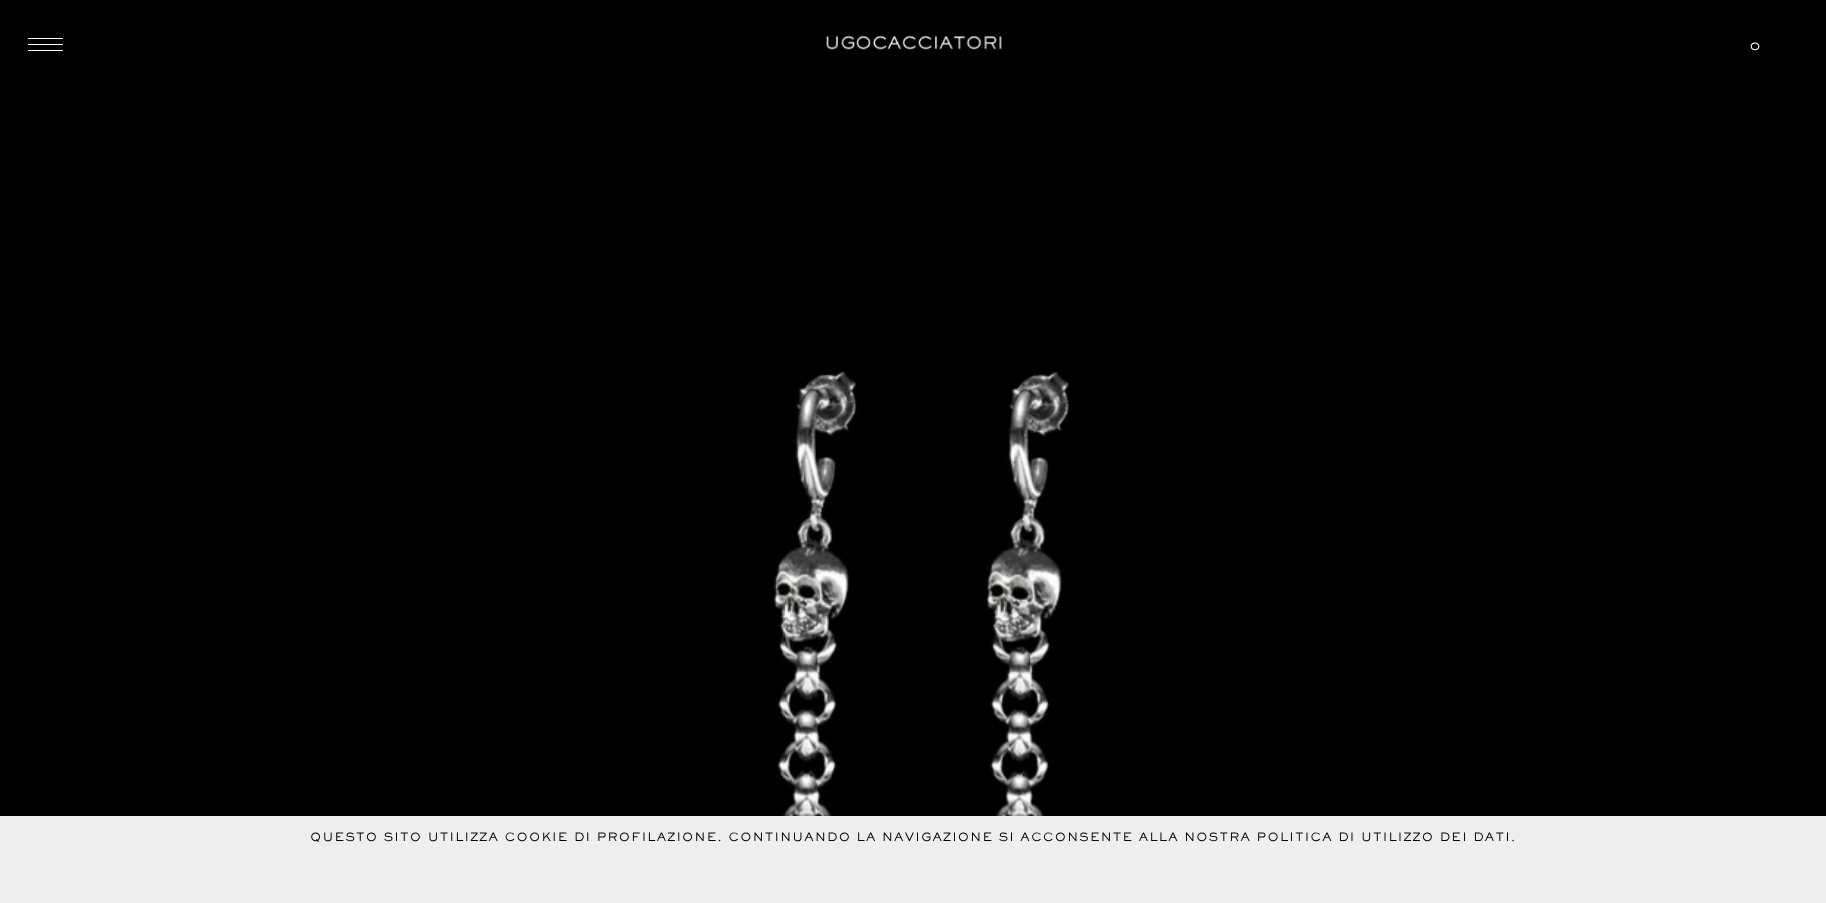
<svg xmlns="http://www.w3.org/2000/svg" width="1826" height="903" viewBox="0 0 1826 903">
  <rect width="100%" height="100%" fill="rgb(0,0,0)"/>
  <image x="826" y="35" width="176" height="15" href="pic1.png"/>
  <rect x="28" y="44" width="35" height="1" fill="rgb(255,255,255)"/>
  <rect x="28" y="38" width="35" height="1" fill="rgb(255,255,255)"/>
  <rect x="28" y="50" width="35" height="1" fill="rgb(255,255,255)"/>
  <text x="1750" y="50" font-family="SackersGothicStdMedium" font-size="11.25" font-weight="500" letter-spacing="2" fill="rgb(255,255,255)">0</text>
  <image x="770" y="371" width="299" height="445" href="pic2.png"/>
  <rect x="0" y="816" width="1826" height="87" fill="rgb(238,238,238)"/>
  <text x="310" y="841" font-family="SackersGothicStdMedium" font-size="11.25" font-weight="500" letter-spacing="1.25" fill="rgb(0,0,0)">QUESTO SITO UTILIZZA COOKIE DI PROFILAZIONE. CONTINUANDO LA NAVIGAZIONE SI ACCONSENTE ALLA NOSTRA POLITICA DI UTILIZZO DEI DATI.</text>
</svg>
